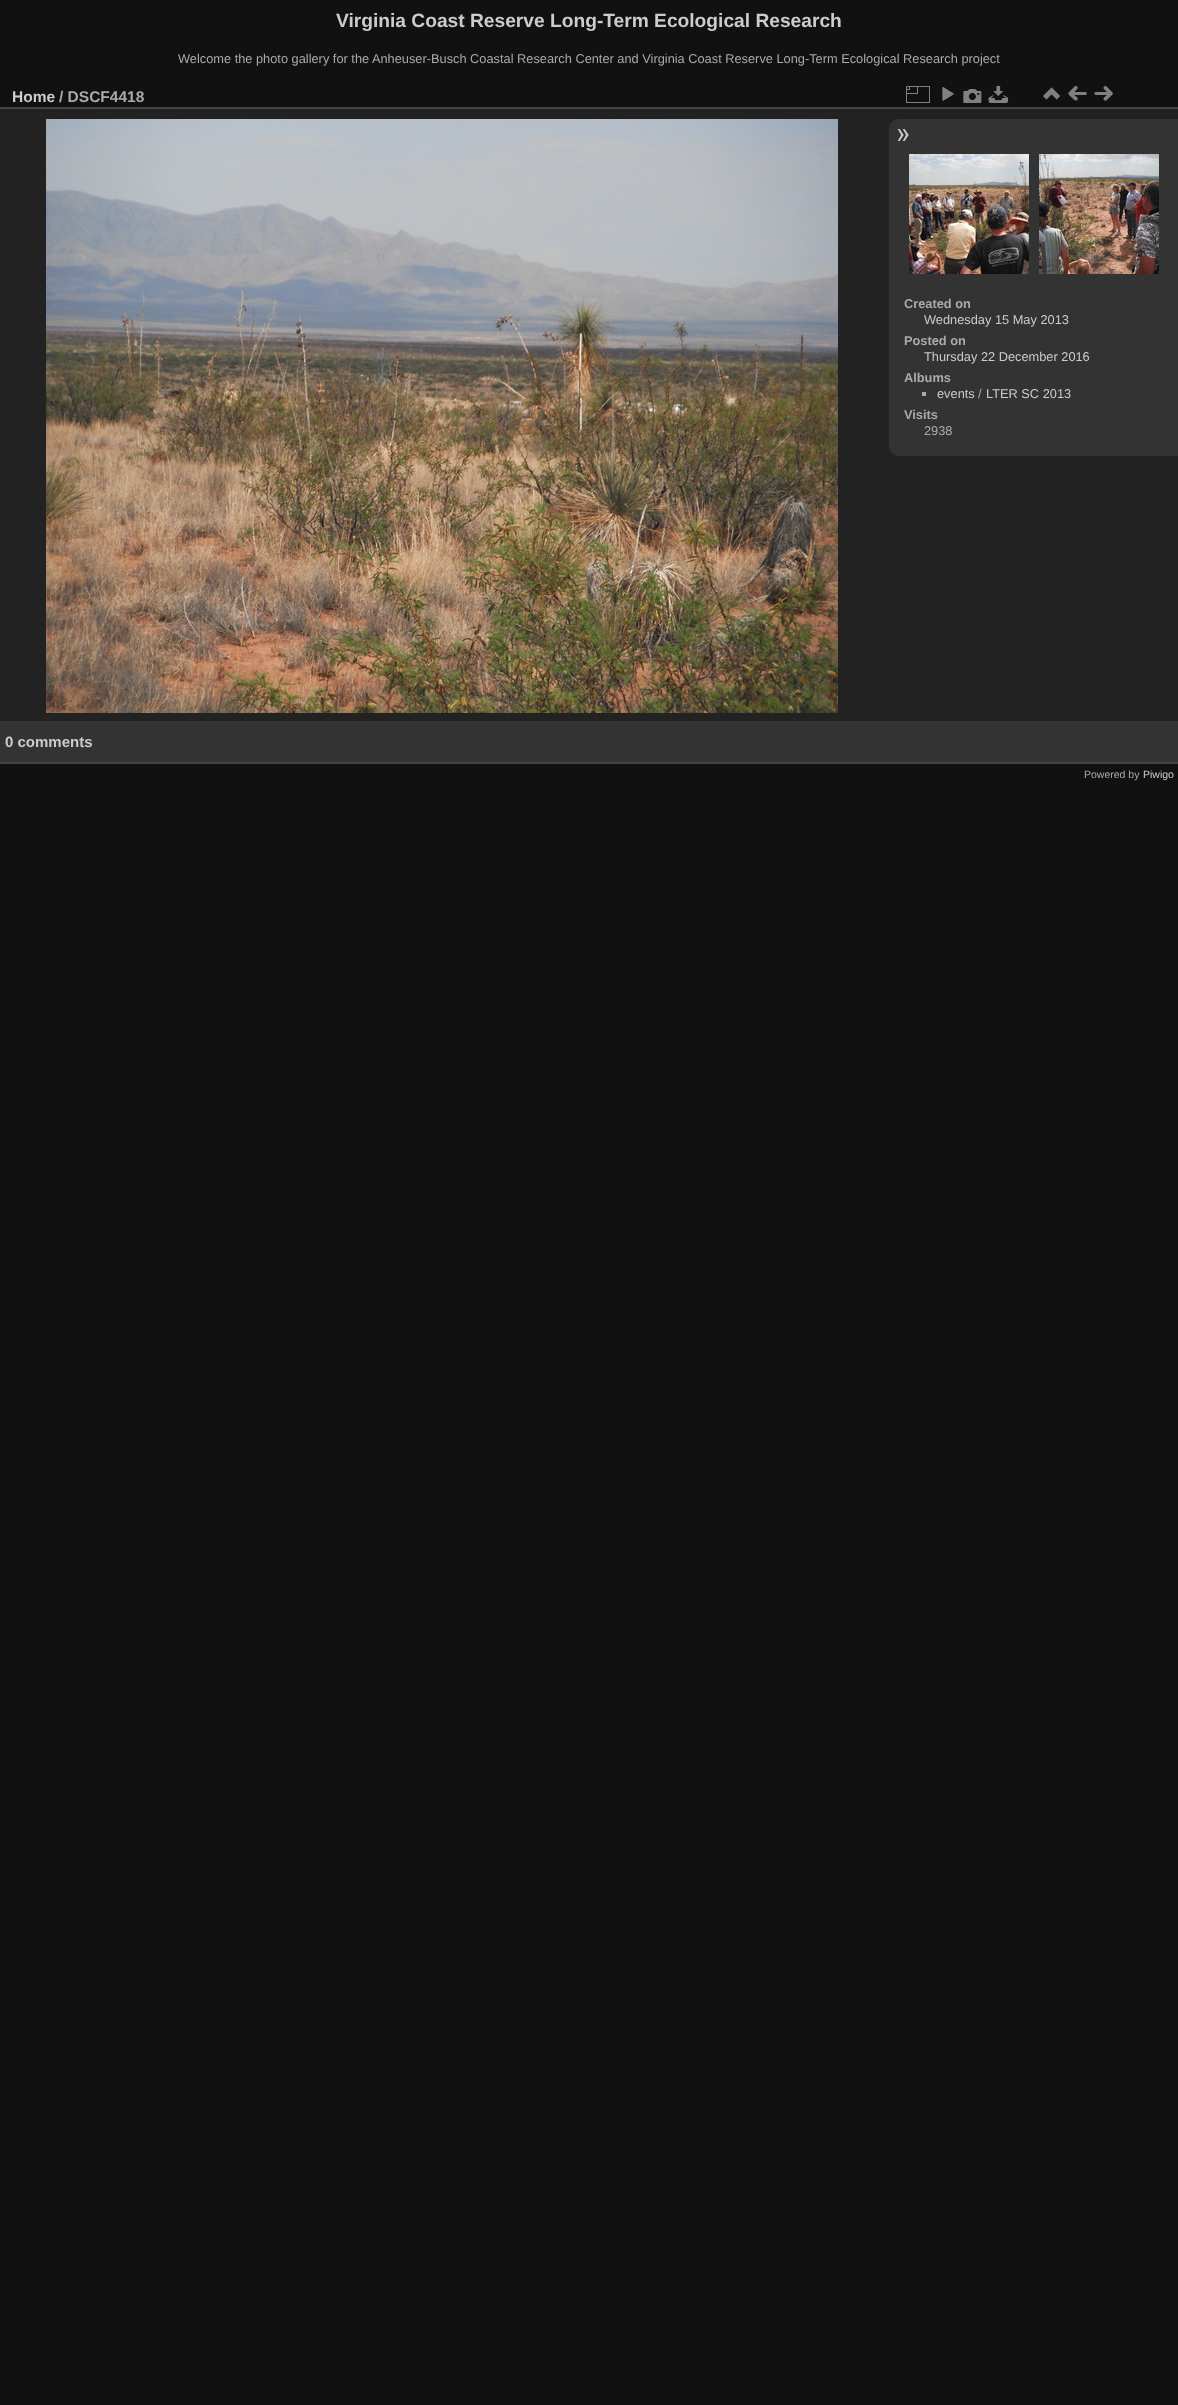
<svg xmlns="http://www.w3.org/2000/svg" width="1178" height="2405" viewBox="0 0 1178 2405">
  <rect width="100%" height="100%" fill="rgb(17,17,17)"/>
  <text x="336" y="27" font-family="Liberation Sans" font-size="19.2" font-weight="bold" fill="rgb(204,204,204)">Virginia Coast Reserve Long-Term Ecological Research</text>
  <text x="178" y="63" font-family="Liberation Sans" font-size="12.8" fill="rgb(170,170,170)">Welcome the photo gallery for the Anheuser-Busch Coastal Research Center and Virginia Coast Reserve Long-Term Ecological Research project</text>
  <rect x="0" y="109" width="1178" height="612" fill="rgb(34,34,34)"/>
  <rect x="0" y="762" width="1178" height="2" fill="rgb(68,68,68)"/>
  <rect x="0" y="107" width="1178" height="2" fill="rgb(68,68,68)"/>
  <text x="12" y="102" font-family="Liberation Sans" font-size="15.5" font-weight="bold" fill="rgb(204,204,204)">Home</text>
  <text x="59" y="102" font-family="Liberation Sans" font-size="15.5" font-weight="bold" fill="rgb(170,170,170)">/ DSCF4418</text>
  <image x="906" y="86" width="24" height="17" href="pic1.png"/>
  <image x="942" y="87" width="12" height="14" href="pic2.png"/>
  <image x="963" y="89" width="19" height="14" href="pic3.png"/>
  <image x="988" y="86" width="21" height="17" href="pic4.png"/>
  <image x="1043" y="87" width="17" height="13" href="pic5.png"/>
  <image x="1068" y="86" width="19" height="15" href="pic6.png"/>
  <image x="1094" y="86" width="19" height="15" href="pic7.png"/>
  <image x="46" y="119" width="792" height="594" href="pic8.png"/>
  <path d="M899 119H1178V456H899C893.5 456 889 451.5 889 446V129C889 123.5 893.5 119 899 119Z" fill="rgb(51,51,51)"/>
  <image x="897" y="129" width="12" height="12" href="pic9.png"/>
  <image x="909" y="154" width="120" height="120" href="pic10.png"/>
  <image x="1039" y="154" width="120" height="120" href="pic11.png"/>
  <text x="904" y="308" font-family="Liberation Sans" font-size="12.8" font-weight="bold" fill="rgb(170,170,170)">Created on</text>
  <text x="924" y="324" font-family="Liberation Sans" font-size="12.8" fill="rgb(204,204,204)">Wednesday 15 May 2013</text>
  <text x="904" y="345" font-family="Liberation Sans" font-size="12.8" font-weight="bold" fill="rgb(170,170,170)">Posted on</text>
  <text x="924" y="361" font-family="Liberation Sans" font-size="12.8" fill="rgb(204,204,204)">Thursday 22 December 2016</text>
  <text x="904" y="382" font-family="Liberation Sans" font-size="12.8" font-weight="bold" fill="rgb(170,170,170)">Albums</text>
  <rect x="922" y="392" width="4" height="4" fill="rgb(170,170,170)"/>
  <text x="937" y="398" font-family="Liberation Sans" font-size="12.8" fill="rgb(204,204,204)">events</text>
  <text x="978" y="398" font-family="Liberation Sans" font-size="12.8" fill="rgb(170,170,170)">/</text>
  <text x="986" y="398" font-family="Liberation Sans" font-size="12.8" fill="rgb(204,204,204)">LTER SC 2013</text>
  <text x="904" y="419" font-family="Liberation Sans" font-size="12.8" font-weight="bold" fill="rgb(170,170,170)">Visits</text>
  <text x="924" y="435" font-family="Liberation Sans" font-size="12.8" fill="rgb(170,170,170)">2938</text>
  <rect x="0" y="721" width="1178" height="41" fill="rgb(51,51,51)"/>
  <text x="5" y="747" font-family="Liberation Sans" font-size="15" font-weight="bold" fill="rgb(204,204,204)">0 comments</text>
  <text x="1084" y="778" font-family="Liberation Sans" font-size="10.5" fill="rgb(170,170,170)">Powered by</text>
  <text x="1143" y="778" font-family="Liberation Sans" font-size="10.5" fill="rgb(204,204,204)">Piwigo</text>
</svg>
